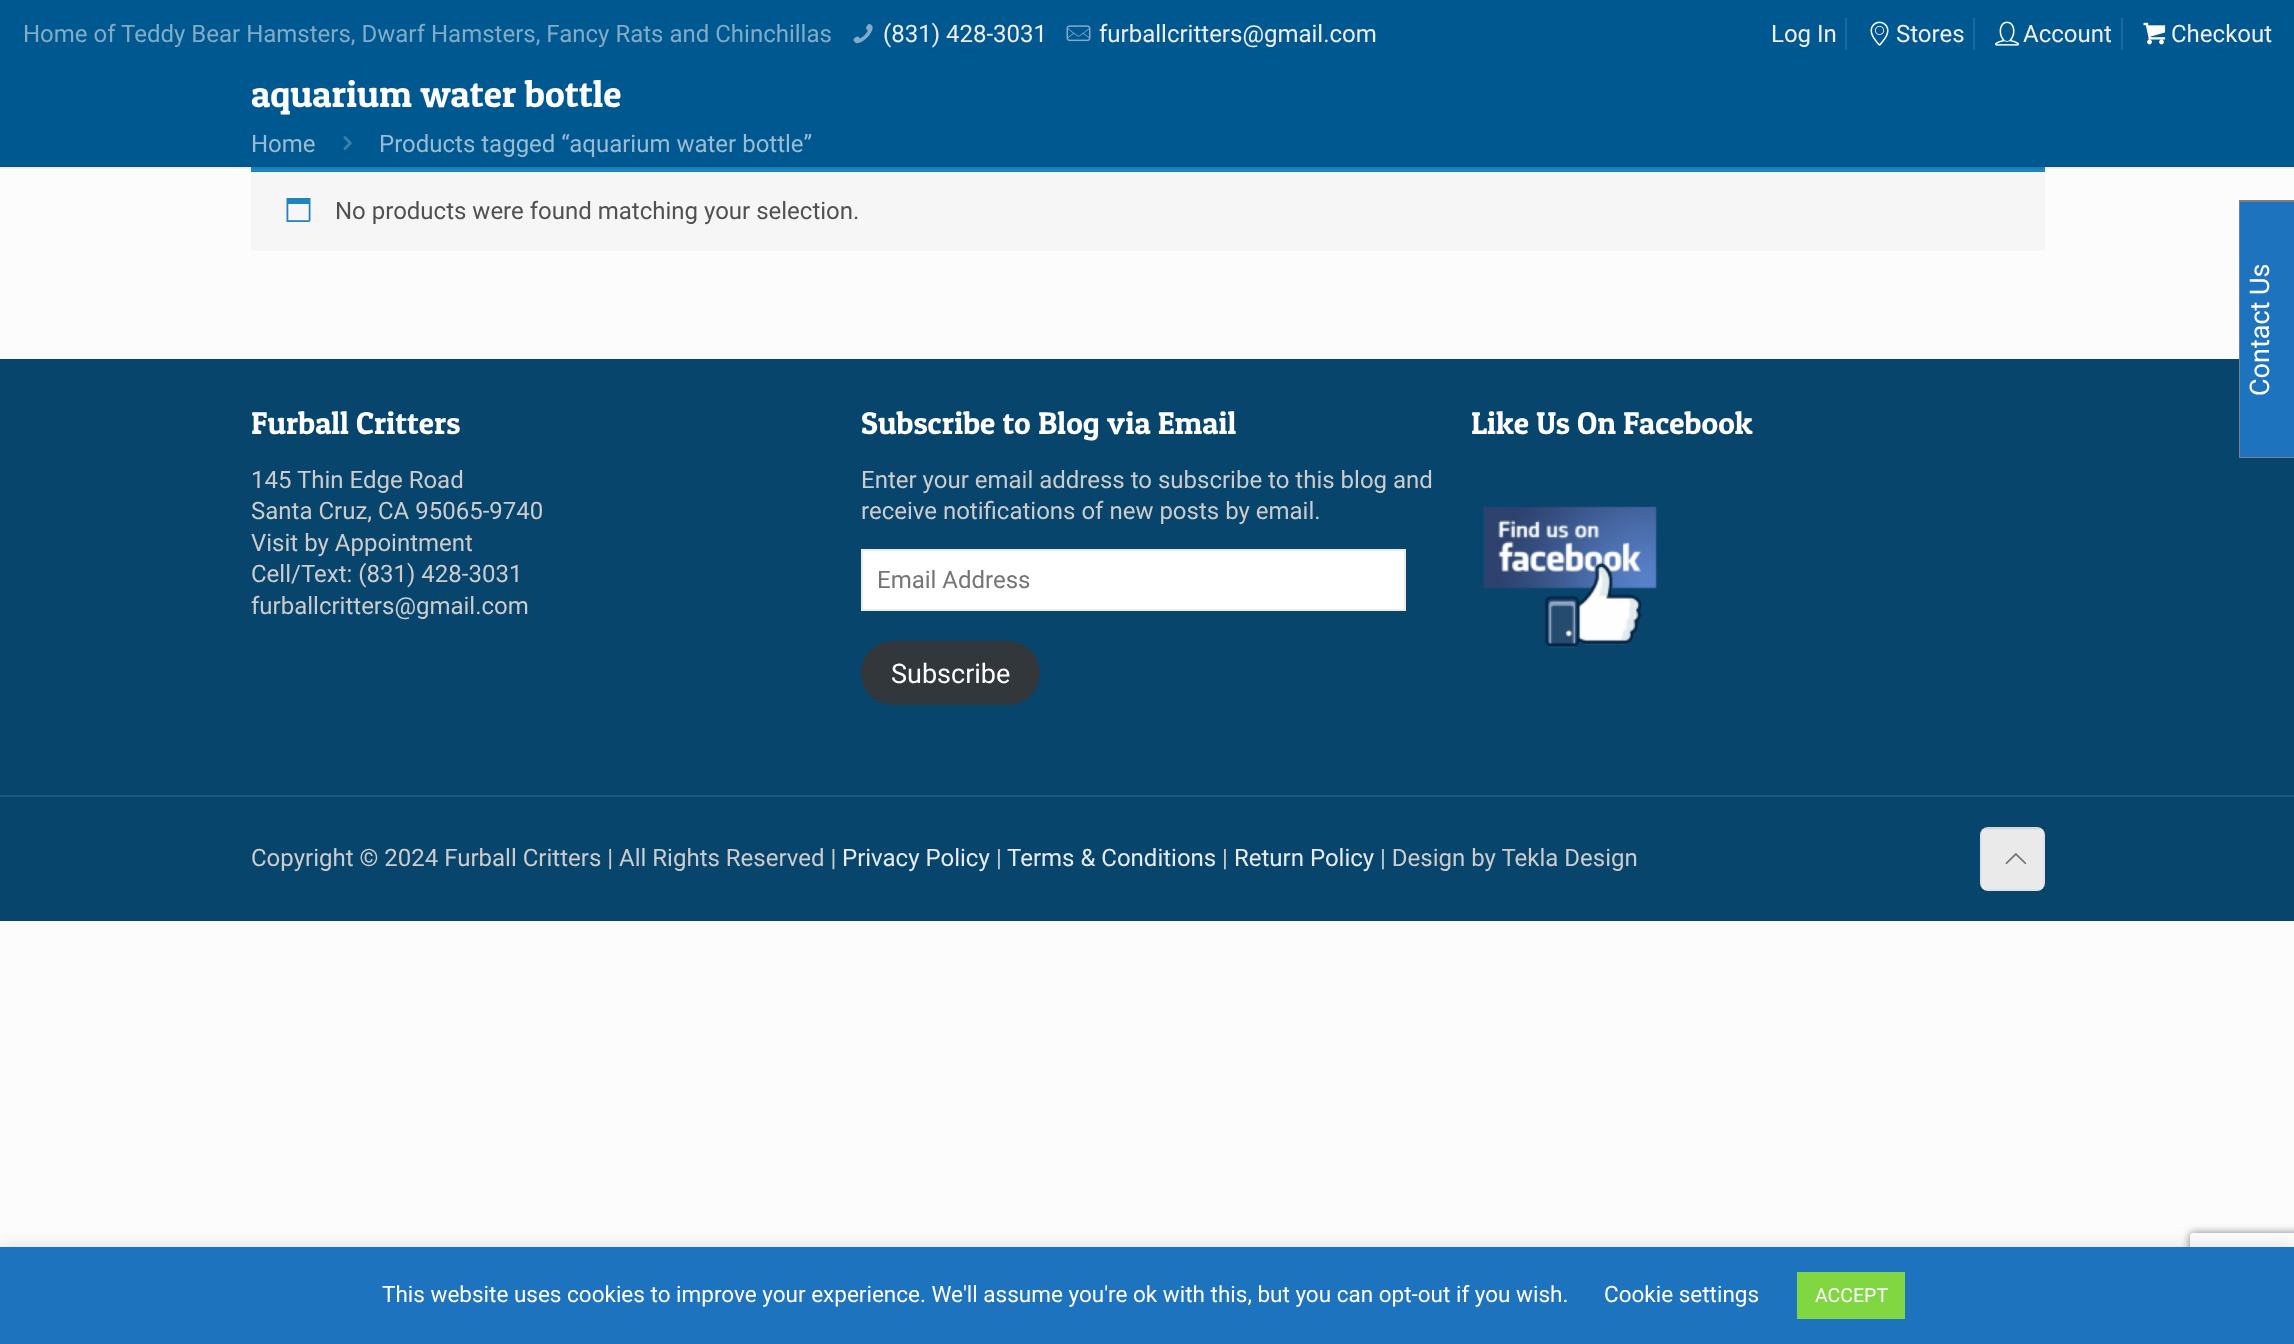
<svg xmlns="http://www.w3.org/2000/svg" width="2294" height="1344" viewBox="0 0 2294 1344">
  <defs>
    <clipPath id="clip1"><path d="M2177 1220H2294V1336H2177ZM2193 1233H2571C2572.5 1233 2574 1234.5 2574 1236V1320C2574 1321.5 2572.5 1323 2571 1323H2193C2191.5 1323 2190 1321.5 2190 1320V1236C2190 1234.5 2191.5 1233 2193 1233Z" clip-rule="evenodd"/></clipPath>
  </defs>
  <rect width="100%" height="100%" fill="rgb(252,252,252)"/>
  <rect x="0" y="0" width="2294" height="167" fill="rgb(0,88,145)"/>
  <text x="23" y="42" font-family="Roboto" font-size="24" fill="rgb(128,172,200)">Home of Teddy Bear Hamsters, Dwarf Hamsters, Fancy Rats and Chinchillas</text>
  <image x="853" y="24" width="20" height="20" href="pic1.png"/>
  <text x="883" y="42" font-family="Roboto" font-size="24" fill="rgb(238,238,238)">(831) 428-3031</text>
  <image x="1066" y="25" width="25" height="17" href="pic2.png"/>
  <text x="1099" y="42" font-family="Roboto" font-size="24" fill="rgb(238,238,238)">furballcritters@gmail.com</text>
  <rect x="1845" y="18" width="2" height="32" fill="rgb(26,105,156)"/>
  <text x="1771" y="42" font-family="Roboto" font-size="24" fill="rgb(238,238,238)">Log In</text>
  <rect x="1973" y="18" width="2" height="32" fill="rgb(26,105,156)"/>
  <image x="1870" y="21" width="19" height="25" href="pic3.png"/>
  <text x="1896" y="42" font-family="Roboto" font-size="24" fill="rgb(238,238,238)">Stores</text>
  <rect x="2121" y="18" width="2" height="32" fill="rgb(26,105,156)"/>
  <image x="1995" y="21" width="25" height="25" href="pic4.png"/>
  <text x="2023" y="42" font-family="Roboto" font-size="24" fill="rgb(238,238,238)">Account</text>
  <image x="2143" y="22" width="23" height="23" href="pic5.png"/>
  <text x="2171" y="42" font-family="Roboto" font-size="24" fill="rgb(238,238,238)">Checkout</text>
  <text x="251" y="107" font-family="Patua One" font-size="37.5" fill="rgb(255,255,255)">aquarium water bottle</text>
  <text x="251" y="152" font-family="Roboto" font-size="24" fill="rgb(153,188,211)">Home</text>
  <image x="343" y="136" width="9" height="14" href="pic6.png"/>
  <text x="379" y="152" font-family="Roboto" font-size="24" fill="rgb(153,188,211)">Products tagged “aquarium water bottle”</text>
  <rect x="251" y="167" width="1794" height="5" fill="rgb(30,133,190)"/>
  <image x="0" y="166" width="2294" height="3" href="pic7.png"/>
  <rect x="251" y="172" width="1794" height="79" fill="rgb(247,246,247)"/>
  <image x="286" y="198" width="25" height="24" href="pic8.png"/>
  <text x="335" y="219" font-family="Roboto" font-size="24" fill="rgb(81,81,81)">No products were found matching your selection.</text>
  <rect x="0" y="359" width="2294" height="562" fill="rgb(8,69,109)"/>
  <text x="251" y="434" font-family="Patua One" font-size="31.5" fill="rgb(255,255,255)">Furball Critters</text>
  <g font-family="Roboto" font-size="24" fill="rgb(204,204,204)">
    <text>
      <tspan x="251" y="488">145 Thin Edge Road</tspan>
      <tspan x="251" y="519">Santa Cruz, CA 95065-9740</tspan>
      <tspan x="251" y="551">Visit by Appointment</tspan>
      <tspan x="251" y="582">Cell/Text: (831) 428-3031</tspan>
      <tspan x="251" y="614">furballcritters@gmail.com</tspan>
    </text>
  </g>
  <text x="861" y="434" font-family="Patua One" font-size="31.5" fill="rgb(255,255,255)">Subscribe to Blog via Email</text>
  <g font-family="Roboto" font-size="24" fill="rgb(204,204,204)">
    <text>
      <tspan x="861" y="488">Enter your email address to subscribe to this blog and</tspan>
      <tspan x="861" y="519">receive notifications of new posts by email.</tspan>
    </text>
  </g>
  <rect x="862" y="550" width="543" height="60" fill="rgb(255,255,255)" stroke="rgb(235,235,235)" stroke-width="2"/>
  <text x="877" y="588" font-family="Roboto" font-size="24" fill="rgb(117,117,117)">Email Address</text>
  <rect x="861" y="641" width="179" height="64" rx="32" fill="rgb(50,55,60)"/>
  <rect x="886" y="641" width="2" height="1" fill="rgba(0,0,0,0.05)"/>
  <text x="891" y="683" font-family="Roboto" font-size="27" fill="rgb(255,255,255)">Subscribe</text>
  <text x="1471" y="434" font-family="Patua One" font-size="31.5" fill="rgb(255,255,255)">Like Us On Facebook</text>
  <image x="1483" y="506" width="175" height="142" href="pic9.png"/>
  <rect x="0" y="795" width="2294" height="2" fill="rgb(33,88,124)"/>
  <text x="251" y="866" font-family="Roboto" font-size="24" fill="rgb(204,204,204)">Copyright © 2024 Furball Critters | All Rights Reserved |</text>
  <text x="842" y="866" font-family="Roboto" font-size="24" fill="rgb(231,235,238)">Privacy Policy</text>
  <text x="996" y="866" font-family="Roboto" font-size="24" fill="rgb(204,204,204)">|</text>
  <text x="1007" y="866" font-family="Roboto" font-size="24" fill="rgb(231,235,238)">Terms &amp; Conditions</text>
  <text x="1222" y="866" font-family="Roboto" font-size="24" fill="rgb(204,204,204)">|</text>
  <text x="1234" y="866" font-family="Roboto" font-size="24" fill="rgb(231,235,238)">Return Policy</text>
  <text x="1380" y="866" font-family="Roboto" font-size="24" fill="rgb(204,204,204)">| Design by Tekla Design</text>
  <rect x="1980" y="827" width="65" height="64" rx="8" fill="rgb(247,247,247)"/>
  <image x="1982" y="827" width="61" height="3" href="pic10.png"/>
  <rect x="1981" y="828" width="63" height="62" fill="none" stroke="rgba(0,0,0,0.03)" stroke-width="2"/>
  <rect x="1980" y="827" width="65" height="64" fill="rgba(0,0,0,0.05)"/>
  <image x="2005" y="853" width="22" height="12" href="pic11.png"/>
  <rect x="2240" y="202" width="54" height="255" fill="rgb(30,115,190)"/>
  <rect x="2239" y="200" width="1" height="258" fill="rgb(127,127,127)"/>
  <rect x="2239" y="200" width="55" height="2" fill="rgb(127,127,127)"/>
  <rect x="2239" y="457" width="55" height="1" fill="rgb(127,127,127)"/>
  <text x="2269" y="396" transform="rotate(-90 2269 396)" font-family="Roboto" font-size="27" fill="rgb(255,255,255)">Contact Us</text>
  <rect x="0" y="1245" width="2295" height="98" fill="rgba(172,171,171,0.3)" filter="blur(7.5px)"/>
  <g clip-path="url(#clip1)">
    <rect x="2190" y="1233" width="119" height="90" rx="3" fill="rgb(128,128,128)" filter="blur(4px)"/>
  </g>
  <rect x="0" y="1247" width="2294" height="97" fill="rgb(30,115,190)"/>
  <g font-family="Roboto" font-size="22.5" fill="rgb(255,255,255)">
    <text x="382" y="1302">This website uses cookies to improve your experience. We'll assume you're ok with this, but you can opt-out if you wish.</text>
    <text x="1604" y="1302">Cookie settings</text>
  </g>
  <rect x="1797" y="1272" width="108" height="47" fill="rgb(129,215,66)"/>
  <text x="1815" y="1302" font-family="Roboto" font-size="19.5" fill="rgb(255,255,255)">ACCEPT</text>
</svg>
